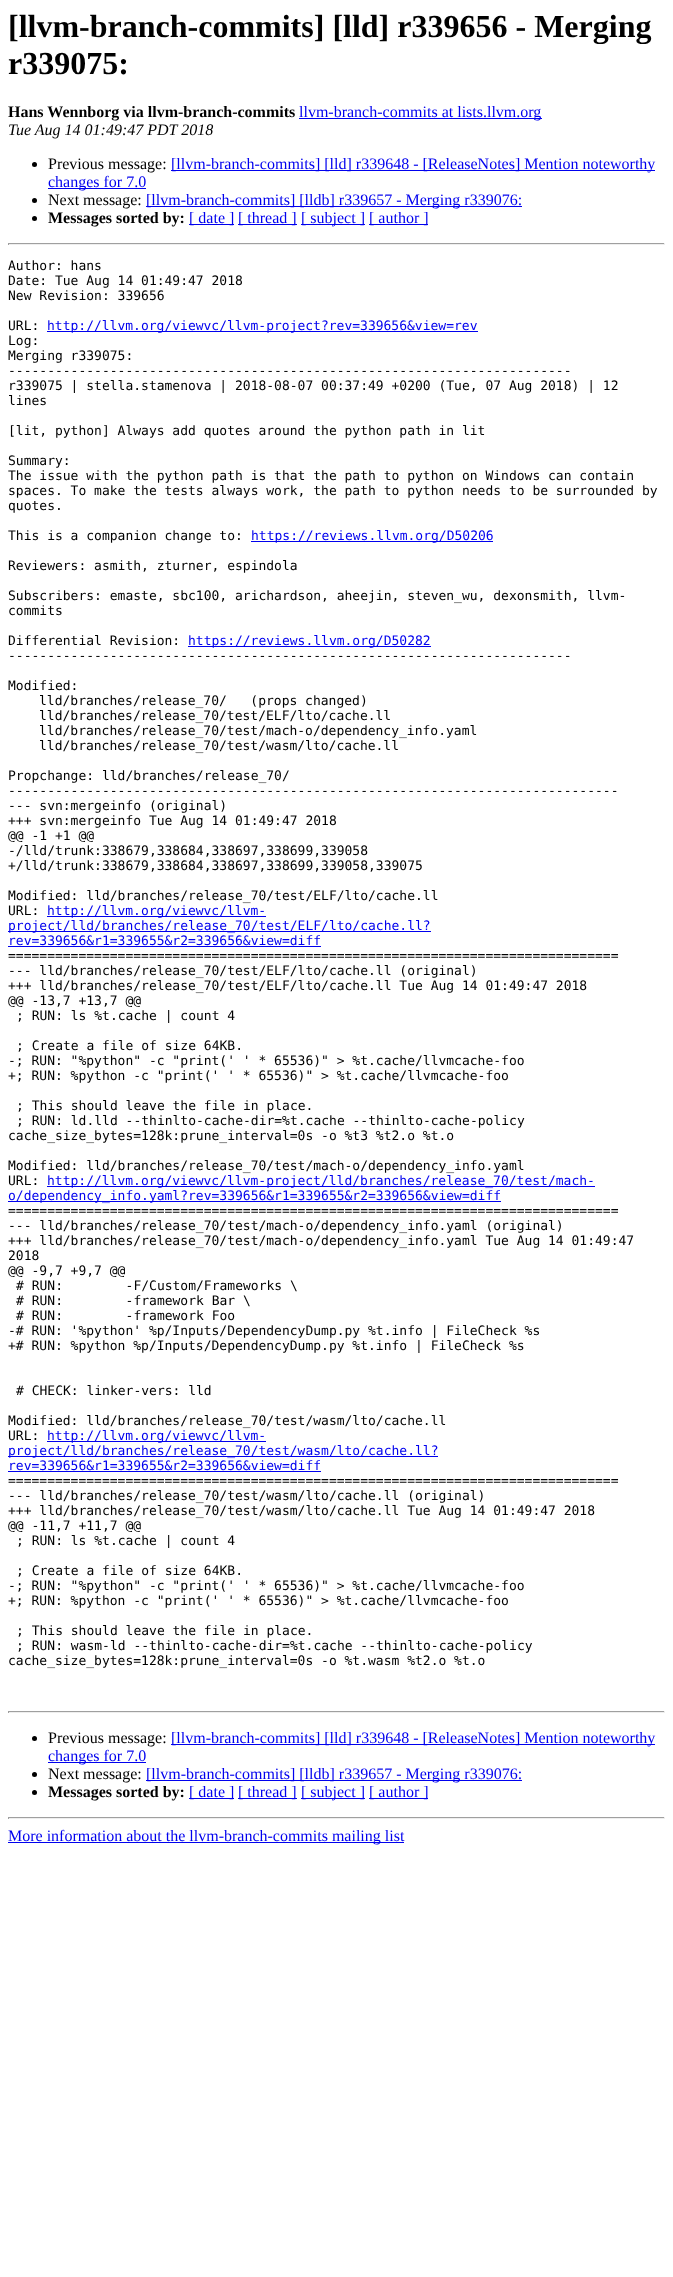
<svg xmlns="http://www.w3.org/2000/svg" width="673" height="2277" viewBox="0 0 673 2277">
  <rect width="100%" height="100%" fill="rgb(255,255,255)"/>
  <g font-family="Liberation Serif" font-size="32" font-weight="bold" fill="rgb(0,0,0)">
    <text>
      <tspan x="8" y="37">[llvm-branch-commits] [lld] r339656 - Merging</tspan>
      <tspan x="8" y="74">r339075:</tspan>
    </text>
  </g>
  <text x="8" y="117" font-family="Liberation Serif" font-size="16" font-weight="bold" fill="rgb(0,0,0)">Hans Wennborg via llvm-branch-commits</text>
  <rect x="299" y="118" width="243" height="1" fill="rgb(0,0,238)"/>
  <text x="299" y="117" font-family="Liberation Serif" font-size="16" fill="rgb(0,0,238)">llvm-branch-commits at lists.llvm.org</text>
  <text x="8" y="135" font-family="Liberation Serif" font-size="16" font-style="italic" fill="rgb(0,0,0)">Tue Aug 14 01:49:47 PDT 2018</text>
  <circle cx="34.5" cy="164.5" r="2.5" fill="rgb(0,0,0)"/>
  <text x="48" y="169" font-family="Liberation Serif" font-size="16" fill="rgb(0,0,0)">Previous message:</text>
  <rect x="171" y="170" width="484" height="1" fill="rgb(0,0,238)"/>
  <text x="171" y="169" font-family="Liberation Serif" font-size="16" fill="rgb(0,0,238)">[llvm-branch-commits] [lld] r339648 - [ReleaseNotes] Mention noteworthy</text>
  <rect x="48" y="188" width="98" height="1" fill="rgb(0,0,238)"/>
  <text x="48" y="187" font-family="Liberation Serif" font-size="16" fill="rgb(0,0,238)">changes for 7.0</text>
  <circle cx="34.5" cy="200.5" r="2.5" fill="rgb(0,0,0)"/>
  <text x="48" y="205" font-family="Liberation Serif" font-size="16" fill="rgb(0,0,0)">Next message:</text>
  <rect x="146" y="206" width="376" height="1" fill="rgb(0,0,238)"/>
  <text x="146" y="205" font-family="Liberation Serif" font-size="16" fill="rgb(0,0,238)">[llvm-branch-commits] [lldb] r339657 - Merging r339076:</text>
  <circle cx="34.5" cy="218.5" r="2.5" fill="rgb(0,0,0)"/>
  <text x="48" y="223" font-family="Liberation Serif" font-size="16" font-weight="bold" fill="rgb(0,0,0)">Messages sorted by:</text>
  <rect x="189" y="224" width="45" height="1" fill="rgb(0,0,238)"/>
  <text x="189" y="223" font-family="Liberation Serif" font-size="16" fill="rgb(0,0,238)">[ date ]</text>
  <rect x="238" y="224" width="59" height="1" fill="rgb(0,0,238)"/>
  <text x="238" y="223" font-family="Liberation Serif" font-size="16" fill="rgb(0,0,238)">[ thread ]</text>
  <rect x="301" y="224" width="64" height="1" fill="rgb(0,0,238)"/>
  <text x="301" y="223" font-family="Liberation Serif" font-size="16" fill="rgb(0,0,238)">[ subject ]</text>
  <rect x="369" y="224" width="59" height="1" fill="rgb(0,0,238)"/>
  <text x="369" y="223" font-family="Liberation Serif" font-size="16" fill="rgb(0,0,238)">[ author ]</text>
  <rect x="8" y="243" width="657" height="1" fill="rgb(159,159,159)"/>
  <rect x="664" y="243" width="1" height="2" fill="rgb(238,238,238)"/>
  <rect x="8" y="244" width="657" height="1" fill="rgb(238,238,238)"/>
  <rect x="8" y="243" width="1" height="2" fill="rgb(159,159,159)"/>
  <g font-family="DejaVu Sans Mono" font-size="13" fill="rgb(0,0,0)">
    <text>
      <tspan x="8" y="270">Author: hans</tspan>
      <tspan x="8" y="285">Date: Tue Aug 14 01:49:47 2018</tspan>
      <tspan x="8" y="300">New Revision: 339656</tspan>
    </text>
    <text x="8" y="330">URL:</text>
  </g>
  <rect x="47" y="331" width="431" height="1" fill="rgb(0,0,238)"/>
  <text x="47" y="330" font-family="DejaVu Sans Mono" font-size="13" fill="rgb(0,0,238)">http://llvm.org/viewvc/llvm-project?rev=339656&amp;view=rev</text>
  <g font-family="DejaVu Sans Mono" font-size="13" fill="rgb(0,0,0)">
    <text>
      <tspan x="8" y="345">Log:</tspan>
      <tspan x="8" y="360">Merging r339075:</tspan>
      <tspan x="8" y="375">------------------------------------------------------------------------</tspan>
      <tspan x="8" y="390">r339075 | stella.stamenova | 2018-08-07 00:37:49 +0200 (Tue, 07 Aug 2018) | 12</tspan>
      <tspan x="8" y="405">lines</tspan>
    </text>
    <text x="8" y="435">[lit, python] Always add quotes around the python path in lit</text>
    <text>
      <tspan x="8" y="465">Summary:</tspan>
      <tspan x="8" y="480">The issue with the python path is that the path to python on Windows can contain</tspan>
      <tspan x="8" y="495">spaces. To make the tests always work, the path to python needs to be surrounded by</tspan>
      <tspan x="8" y="510">quotes.</tspan>
    </text>
    <text x="8" y="540">This is a companion change to:</text>
  </g>
  <rect x="251" y="541" width="242" height="1" fill="rgb(0,0,238)"/>
  <text x="251" y="540" font-family="DejaVu Sans Mono" font-size="13" fill="rgb(0,0,238)">https://reviews.llvm.org/D50206</text>
  <g font-family="DejaVu Sans Mono" font-size="13" fill="rgb(0,0,0)">
    <text x="8" y="570">Reviewers: asmith, zturner, espindola</text>
    <text>
      <tspan x="8" y="600">Subscribers: emaste, sbc100, arichardson, aheejin, steven_wu, dexonsmith, llvm-</tspan>
      <tspan x="8" y="615">commits</tspan>
    </text>
    <text x="8" y="645">Differential Revision:</text>
  </g>
  <rect x="188" y="646" width="243" height="1" fill="rgb(0,0,238)"/>
  <text x="188" y="645" font-family="DejaVu Sans Mono" font-size="13" fill="rgb(0,0,238)">https://reviews.llvm.org/D50282</text>
  <g font-family="DejaVu Sans Mono" font-size="13" fill="rgb(0,0,0)">
    <text x="8" y="660">------------------------------------------------------------------------</text>
    <text x="8" y="690">Modified:</text>
    <text xml:space="preserve"><tspan x="39" y="705">lld/branches/release_70/   (props changed)</tspan><tspan x="39" y="720">lld/branches/release_70/test/ELF/lto/cache.ll</tspan><tspan x="39" y="735">lld/branches/release_70/test/mach-o/dependency_info.yaml</tspan><tspan x="39" y="750">lld/branches/release_70/test/wasm/lto/cache.ll</tspan></text>
    <text>
      <tspan x="8" y="780">Propchange: lld/branches/release_70/</tspan>
      <tspan x="8" y="795">------------------------------------------------------------------------------</tspan>
      <tspan x="8" y="810">--- svn:mergeinfo (original)</tspan>
      <tspan x="8" y="825">+++ svn:mergeinfo Tue Aug 14 01:49:47 2018</tspan>
      <tspan x="8" y="840">@@ -1 +1 @@</tspan>
      <tspan x="8" y="855">-/lld/trunk:338679,338684,338697,338699,339058</tspan>
      <tspan x="8" y="870">+/lld/trunk:338679,338684,338697,338699,339058,339075</tspan>
    </text>
    <text>
      <tspan x="8" y="900">Modified: lld/branches/release_70/test/ELF/lto/cache.ll</tspan>
      <tspan x="8" y="915">URL:</tspan>
    </text>
  </g>
  <rect x="47" y="916" width="219" height="1" fill="rgb(0,0,238)"/>
  <text x="47" y="915" font-family="DejaVu Sans Mono" font-size="13" fill="rgb(0,0,238)">http://llvm.org/viewvc/llvm-</text>
  <rect x="8" y="931" width="423" height="1" fill="rgb(0,0,238)"/>
  <g font-family="DejaVu Sans Mono" font-size="13" fill="rgb(0,0,238)">
    <text>
      <tspan x="8" y="930">project/lld/branches/release_70/test/ELF/lto/cache.ll?</tspan>
      <tspan x="8" y="945">rev=339656&amp;r1=339655&amp;r2=339656&amp;view=diff</tspan>
    </text>
  </g>
  <rect x="8" y="946" width="313" height="1" fill="rgb(0,0,238)"/>
  <g font-family="DejaVu Sans Mono" font-size="13" fill="rgb(0,0,0)">
    <text>
      <tspan x="8" y="960">==============================================================================</tspan>
      <tspan x="8" y="975">--- lld/branches/release_70/test/ELF/lto/cache.ll (original)</tspan>
      <tspan x="8" y="990">+++ lld/branches/release_70/test/ELF/lto/cache.ll Tue Aug 14 01:49:47 2018</tspan>
      <tspan x="8" y="1005">@@ -13,7 +13,7 @@</tspan>
    </text>
    <text x="16" y="1020">; RUN: ls %t.cache | count 4</text>
    <text x="16" y="1050">; Create a file of size 64KB.</text>
    <text>
      <tspan x="8" y="1065">-; RUN: "%python" -c "print(' ' * 65536)" &gt; %t.cache/llvmcache-foo</tspan>
      <tspan x="8" y="1080">+; RUN: %python -c "print(' ' * 65536)" &gt; %t.cache/llvmcache-foo</tspan>
    </text>
    <text>
      <tspan x="16" y="1110">; This should leave the file in place.</tspan>
      <tspan x="16" y="1125">; RUN: ld.lld --thinlto-cache-dir=%t.cache --thinlto-cache-policy</tspan>
    </text>
    <text x="8" y="1140">cache_size_bytes=128k:prune_interval=0s -o %t3 %t2.o %t.o</text>
    <text>
      <tspan x="8" y="1170">Modified: lld/branches/release_70/test/mach-o/dependency_info.yaml</tspan>
      <tspan x="8" y="1185">URL:</tspan>
    </text>
  </g>
  <rect x="47" y="1186" width="548" height="1" fill="rgb(0,0,238)"/>
  <text x="47" y="1185" font-family="DejaVu Sans Mono" font-size="13" fill="rgb(0,0,238)">http://llvm.org/viewvc/llvm-project/lld/branches/release_70/test/mach-</text>
  <rect x="8" y="1201" width="493" height="1" fill="rgb(0,0,238)"/>
  <text x="8" y="1200" font-family="DejaVu Sans Mono" font-size="13" fill="rgb(0,0,238)">o/dependency_info.yaml?rev=339656&amp;r1=339655&amp;r2=339656&amp;view=diff</text>
  <g font-family="DejaVu Sans Mono" font-size="13" fill="rgb(0,0,0)">
    <text>
      <tspan x="8" y="1215">==============================================================================</tspan>
      <tspan x="8" y="1230">--- lld/branches/release_70/test/mach-o/dependency_info.yaml (original)</tspan>
      <tspan x="8" y="1245">+++ lld/branches/release_70/test/mach-o/dependency_info.yaml Tue Aug 14 01:49:47</tspan>
      <tspan x="8" y="1260">2018</tspan>
      <tspan x="8" y="1275">@@ -9,7 +9,7 @@</tspan>
    </text>
    <text xml:space="preserve"><tspan x="16" y="1290"># RUN:        -F/Custom/Frameworks \</tspan><tspan x="16" y="1305"># RUN:        -framework Bar \</tspan><tspan x="16" y="1320"># RUN:        -framework Foo</tspan></text>
    <text>
      <tspan x="8" y="1335">-# RUN: '%python' %p/Inputs/DependencyDump.py %t.info | FileCheck %s</tspan>
      <tspan x="8" y="1350">+# RUN: %python %p/Inputs/DependencyDump.py %t.info | FileCheck %s</tspan>
    </text>
    <text x="16" y="1395"># CHECK: linker-vers: lld</text>
    <text>
      <tspan x="8" y="1425">Modified: lld/branches/release_70/test/wasm/lto/cache.ll</tspan>
      <tspan x="8" y="1440">URL:</tspan>
    </text>
  </g>
  <rect x="47" y="1441" width="219" height="1" fill="rgb(0,0,238)"/>
  <text x="47" y="1440" font-family="DejaVu Sans Mono" font-size="13" fill="rgb(0,0,238)">http://llvm.org/viewvc/llvm-</text>
  <rect x="8" y="1456" width="430" height="1" fill="rgb(0,0,238)"/>
  <g font-family="DejaVu Sans Mono" font-size="13" fill="rgb(0,0,238)">
    <text>
      <tspan x="8" y="1455">project/lld/branches/release_70/test/wasm/lto/cache.ll?</tspan>
      <tspan x="8" y="1470">rev=339656&amp;r1=339655&amp;r2=339656&amp;view=diff</tspan>
    </text>
  </g>
  <rect x="8" y="1471" width="313" height="1" fill="rgb(0,0,238)"/>
  <g font-family="DejaVu Sans Mono" font-size="13" fill="rgb(0,0,0)">
    <text>
      <tspan x="8" y="1485">==============================================================================</tspan>
      <tspan x="8" y="1500">--- lld/branches/release_70/test/wasm/lto/cache.ll (original)</tspan>
      <tspan x="8" y="1515">+++ lld/branches/release_70/test/wasm/lto/cache.ll Tue Aug 14 01:49:47 2018</tspan>
      <tspan x="8" y="1530">@@ -11,7 +11,7 @@</tspan>
    </text>
    <text x="16" y="1545">; RUN: ls %t.cache | count 4</text>
    <text x="16" y="1575">; Create a file of size 64KB.</text>
    <text>
      <tspan x="8" y="1590">-; RUN: "%python" -c "print(' ' * 65536)" &gt; %t.cache/llvmcache-foo</tspan>
      <tspan x="8" y="1605">+; RUN: %python -c "print(' ' * 65536)" &gt; %t.cache/llvmcache-foo</tspan>
    </text>
    <text>
      <tspan x="16" y="1635">; This should leave the file in place.</tspan>
      <tspan x="16" y="1650">; RUN: wasm-ld --thinlto-cache-dir=%t.cache --thinlto-cache-policy</tspan>
    </text>
    <text x="8" y="1665">cache_size_bytes=128k:prune_interval=0s -o %t.wasm %t2.o %t.o</text>
  </g>
  <rect x="8" y="1711" width="657" height="1" fill="rgb(159,159,159)"/>
  <rect x="664" y="1711" width="1" height="2" fill="rgb(238,238,238)"/>
  <rect x="8" y="1712" width="657" height="1" fill="rgb(238,238,238)"/>
  <rect x="8" y="1711" width="1" height="2" fill="rgb(159,159,159)"/>
  <circle cx="34.5" cy="1738.5" r="2.5" fill="rgb(0,0,0)"/>
  <text x="48" y="1743" font-family="Liberation Serif" font-size="16" fill="rgb(0,0,0)">Previous message:</text>
  <rect x="171" y="1744" width="484" height="1" fill="rgb(0,0,238)"/>
  <text x="171" y="1743" font-family="Liberation Serif" font-size="16" fill="rgb(0,0,238)">[llvm-branch-commits] [lld] r339648 - [ReleaseNotes] Mention noteworthy</text>
  <rect x="48" y="1762" width="98" height="1" fill="rgb(0,0,238)"/>
  <text x="48" y="1761" font-family="Liberation Serif" font-size="16" fill="rgb(0,0,238)">changes for 7.0</text>
  <circle cx="34.5" cy="1774.5" r="2.5" fill="rgb(0,0,0)"/>
  <text x="48" y="1779" font-family="Liberation Serif" font-size="16" fill="rgb(0,0,0)">Next message:</text>
  <rect x="146" y="1780" width="376" height="1" fill="rgb(0,0,238)"/>
  <text x="146" y="1779" font-family="Liberation Serif" font-size="16" fill="rgb(0,0,238)">[llvm-branch-commits] [lldb] r339657 - Merging r339076:</text>
  <circle cx="34.5" cy="1792.5" r="2.5" fill="rgb(0,0,0)"/>
  <text x="48" y="1797" font-family="Liberation Serif" font-size="16" font-weight="bold" fill="rgb(0,0,0)">Messages sorted by:</text>
  <rect x="189" y="1798" width="45" height="1" fill="rgb(0,0,238)"/>
  <text x="189" y="1797" font-family="Liberation Serif" font-size="16" fill="rgb(0,0,238)">[ date ]</text>
  <rect x="238" y="1798" width="59" height="1" fill="rgb(0,0,238)"/>
  <text x="238" y="1797" font-family="Liberation Serif" font-size="16" fill="rgb(0,0,238)">[ thread ]</text>
  <rect x="301" y="1798" width="64" height="1" fill="rgb(0,0,238)"/>
  <text x="301" y="1797" font-family="Liberation Serif" font-size="16" fill="rgb(0,0,238)">[ subject ]</text>
  <rect x="369" y="1798" width="59" height="1" fill="rgb(0,0,238)"/>
  <text x="369" y="1797" font-family="Liberation Serif" font-size="16" fill="rgb(0,0,238)">[ author ]</text>
  <rect x="8" y="1817" width="657" height="1" fill="rgb(159,159,159)"/>
  <rect x="664" y="1817" width="1" height="2" fill="rgb(238,238,238)"/>
  <rect x="8" y="1818" width="657" height="1" fill="rgb(238,238,238)"/>
  <rect x="8" y="1817" width="1" height="2" fill="rgb(159,159,159)"/>
  <rect x="8" y="1842" width="396" height="1" fill="rgb(0,0,238)"/>
  <text x="8" y="1841" font-family="Liberation Serif" font-size="16" fill="rgb(0,0,238)">More information about the llvm-branch-commits mailing list</text>
</svg>
